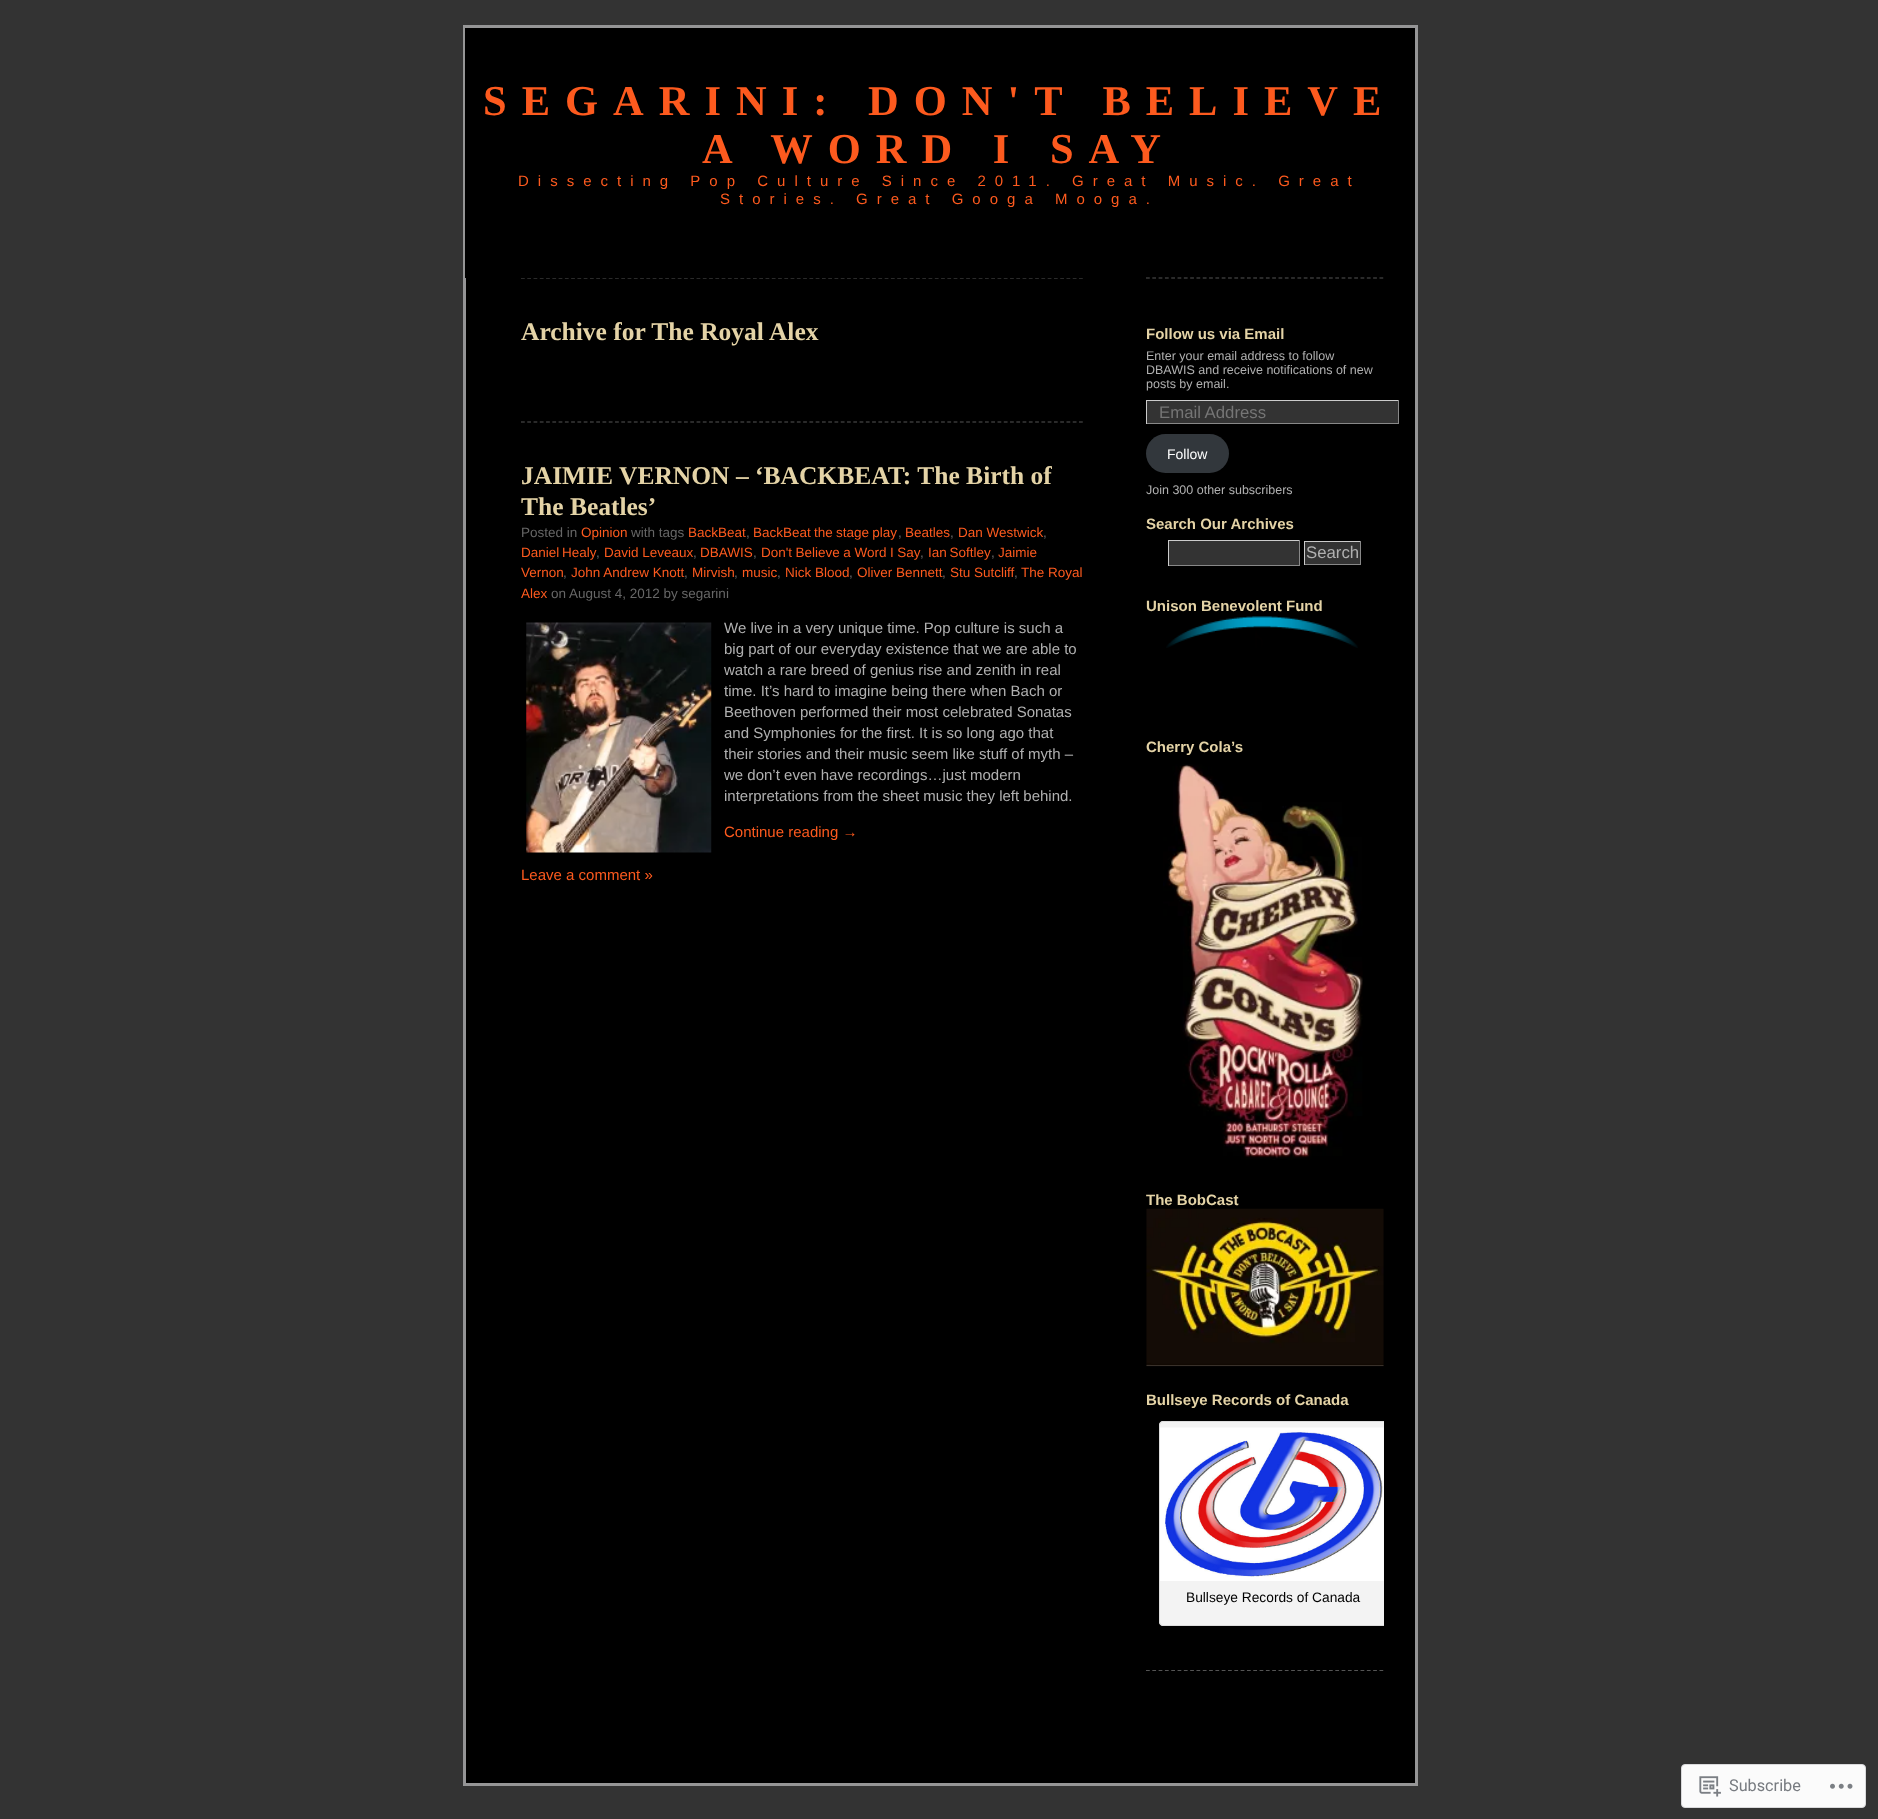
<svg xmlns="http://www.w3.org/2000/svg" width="1878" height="1819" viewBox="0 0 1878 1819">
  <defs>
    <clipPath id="clip1"><rect x="465" y="278" width="619" height="706"/></clipPath>
    <clipPath id="clip2"><rect x="1146" y="1185" width="238" height="181"/></clipPath>
    <clipPath id="clip3"><rect x="1146" y="1385" width="238" height="254"/></clipPath>
  </defs>
  <rect width="100%" height="100%" fill="rgb(51,51,51)"/>
  <rect x="466" y="278" width="949" height="1505" fill="rgb(0,0,0)"/>
  <rect x="464.5" y="26.5" width="952" height="1758" fill="none" stroke="rgb(149,149,150)" stroke-width="3"/>
  <rect x="465" y="28" width="950" height="250" fill="rgb(0,0,0)"/>
  <g font-family="Liberation Serif" font-size="42.5" font-weight="bold" letter-spacing="15" fill="rgb(253,90,30)">
    <text x="483" y="115">SEGARINI: DON'T BELIEVE</text>
    <text x="702" y="163">A WORD I SAY</text>
  </g>
  <g font-family="Liberation Sans" font-size="15" letter-spacing="9" fill="rgb(253,90,30)">
    <text x="518" y="186">Dissecting Pop Culture Since 2011. Great Music. Great</text>
    <text x="720" y="204">Stories. Great Googa Mooga.</text>
  </g>
  <g clip-path="url(#clip1)">
    <path d="M521 278H1084" fill="none" stroke="rgb(85,85,85)" stroke-width="1.2" stroke-dasharray="3.75 2.52"/>
  </g>
  <text x="521" y="340" font-family="Liberation Serif" font-size="25.5" font-weight="bold" fill="rgb(228,211,166)">Archive for The Royal Alex</text>
  <path d="M521 422H1084" fill="none" stroke="rgb(85,85,85)" stroke-width="1.2" stroke-dasharray="3.75 2.52"/>
  <g font-family="Liberation Serif" font-size="25.5" font-weight="bold" fill="rgb(228,211,166)">
    <text>
      <tspan x="521" y="484">JAIMIE VERNON – ‘BACKBEAT: The Birth of</tspan>
      <tspan x="521" y="515">The Beatles’</tspan>
    </text>
  </g>
  <text x="521" y="537" font-family="Liberation Sans" font-size="13.5" fill="rgb(102,102,102)">Posted in</text>
  <text x="581" y="537" font-family="Liberation Sans" font-size="13.5" fill="rgb(253,90,30)">Opinion</text>
  <text x="631" y="537" font-family="Liberation Sans" font-size="13.5" fill="rgb(102,102,102)">with tags</text>
  <text x="688" y="537" font-family="Liberation Sans" font-size="13.5" fill="rgb(253,90,30)">BackBeat</text>
  <text x="746" y="537" font-family="Liberation Sans" font-size="13.5" fill="rgb(102,102,102)">,</text>
  <text x="753" y="537" word-spacing="-0.5" font-family="Liberation Sans" font-size="13.5" fill="rgb(253,90,30)">BackBeat the stage play</text>
  <text x="898" y="537" font-family="Liberation Sans" font-size="13.5" fill="rgb(102,102,102)">,</text>
  <text x="905" y="537" font-family="Liberation Sans" font-size="13.5" fill="rgb(253,90,30)">Beatles</text>
  <text x="950" y="537" font-family="Liberation Sans" font-size="13.5" fill="rgb(102,102,102)">,</text>
  <text x="958" y="537" font-family="Liberation Sans" font-size="13.5" fill="rgb(253,90,30)">Dan Westwick</text>
  <text x="1043" y="537" font-family="Liberation Sans" font-size="13.5" fill="rgb(102,102,102)">,</text>
  <text x="521" y="557" word-spacing="-1" font-family="Liberation Sans" font-size="13.5" fill="rgb(253,90,30)">Daniel Healy</text>
  <text x="596" y="557" font-family="Liberation Sans" font-size="13.5" fill="rgb(102,102,102)">,</text>
  <text x="604" y="557" font-family="Liberation Sans" font-size="13.5" fill="rgb(253,90,30)">David Leveaux</text>
  <text x="693" y="557" font-family="Liberation Sans" font-size="13.5" fill="rgb(102,102,102)">,</text>
  <text x="700" y="557" font-family="Liberation Sans" font-size="13.5" fill="rgb(253,90,30)">DBAWIS</text>
  <text x="753" y="557" font-family="Liberation Sans" font-size="13.5" fill="rgb(102,102,102)">,</text>
  <text x="761" y="557" word-spacing="-0.25" font-family="Liberation Sans" font-size="13.5" fill="rgb(253,90,30)">Don't Believe a Word I Say</text>
  <text x="920" y="557" font-family="Liberation Sans" font-size="13.5" fill="rgb(102,102,102)">,</text>
  <text x="928" y="557" word-spacing="-1" font-family="Liberation Sans" font-size="13.5" fill="rgb(253,90,30)">Ian Softley</text>
  <text x="991" y="557" font-family="Liberation Sans" font-size="13.5" fill="rgb(102,102,102)">,</text>
  <g font-family="Liberation Sans" font-size="13.5" fill="rgb(253,90,30)">
    <text x="998" y="557">Jaimie</text>
    <text x="521" y="577">Vernon</text>
  </g>
  <text x="563" y="577" font-family="Liberation Sans" font-size="13.5" fill="rgb(102,102,102)">,</text>
  <text x="571" y="577" font-family="Liberation Sans" font-size="13.5" fill="rgb(253,90,30)">John Andrew Knott</text>
  <text x="684" y="577" font-family="Liberation Sans" font-size="13.5" fill="rgb(102,102,102)">,</text>
  <text x="692" y="577" font-family="Liberation Sans" font-size="13.5" fill="rgb(253,90,30)">Mirvish</text>
  <text x="734" y="577" font-family="Liberation Sans" font-size="13.5" fill="rgb(102,102,102)">,</text>
  <text x="742" y="577" font-family="Liberation Sans" font-size="13.5" fill="rgb(253,90,30)">music</text>
  <text x="777" y="577" font-family="Liberation Sans" font-size="13.5" fill="rgb(102,102,102)">,</text>
  <text x="785" y="577" font-family="Liberation Sans" font-size="13.5" fill="rgb(253,90,30)">Nick Blood</text>
  <text x="849" y="577" font-family="Liberation Sans" font-size="13.5" fill="rgb(102,102,102)">,</text>
  <text x="857" y="577" font-family="Liberation Sans" font-size="13.5" fill="rgb(253,90,30)">Oliver Bennett</text>
  <text x="942" y="577" font-family="Liberation Sans" font-size="13.5" fill="rgb(102,102,102)">,</text>
  <text x="950" y="577" font-family="Liberation Sans" font-size="13.5" fill="rgb(253,90,30)">Stu Sutcliff</text>
  <text x="1014" y="577" font-family="Liberation Sans" font-size="13.5" fill="rgb(102,102,102)">,</text>
  <g font-family="Liberation Sans" font-size="13.5" fill="rgb(253,90,30)">
    <text x="1021" y="577">The Royal</text>
    <text x="521" y="598">Alex</text>
  </g>
  <text x="551" y="598" font-family="Liberation Sans" font-size="13.5" fill="rgb(102,102,102)">on August 4, 2012 by segarini</text>
  <image x="526" y="622" width="186" height="231" href="pic1.png"/>
  <g font-family="Liberation Sans" font-size="15" fill="rgb(176,176,176)">
    <text>
      <tspan x="724" y="633">We live in a very unique time. Pop culture is such a</tspan>
      <tspan x="724" y="654">big part of our everyday existence that we are able to</tspan>
      <tspan x="724" y="675">watch a rare breed of genius rise and zenith in real</tspan>
      <tspan x="724" y="696">time. It’s hard to imagine being there when Bach or</tspan>
      <tspan x="724" y="717">Beethoven performed their most celebrated Sonatas</tspan>
      <tspan x="724" y="738">and Symphonies for the first. It is so long ago that</tspan>
      <tspan x="724" y="759">their stories and their music seem like stuff of myth –</tspan>
      <tspan x="724" y="780">we don’t even have recordings…just modern</tspan>
      <tspan x="724" y="801">interpretations from the sheet music they left behind.</tspan>
    </text>
  </g>
  <g font-family="Liberation Sans" font-size="15" fill="rgb(253,90,30)">
    <text x="724" y="837">Continue reading →</text>
    <text x="521" y="880">Leave a comment »</text>
  </g>
  <path d="M1146 278H1384" fill="none" stroke="rgb(85,85,85)" stroke-width="1.2" stroke-dasharray="3.75 2.56"/>
  <path d="M1146 1670.5H1384" fill="none" stroke="rgb(85,85,85)" stroke-width="1.2" stroke-dasharray="3.75 2.56"/>
  <text x="1146" y="339" font-family="Liberation Sans" font-size="15" font-weight="bold" fill="rgb(228,211,166)">Follow us via Email</text>
  <g font-family="Liberation Sans" font-size="12.5" fill="rgb(176,176,176)">
    <text>
      <tspan x="1146" y="360">Enter your email address to follow</tspan>
      <tspan x="1146" y="374">DBAWIS and receive notifications of new</tspan>
      <tspan x="1146" y="388">posts by email.</tspan>
    </text>
  </g>
  <rect x="1147" y="401" width="251" height="22" fill="rgb(51,51,51)"/>
  <rect x="1146" y="400" width="253" height="1" fill="rgb(204,204,204)"/>
  <rect x="1398" y="400" width="1" height="24" fill="rgb(136,136,136)"/>
  <rect x="1146" y="423" width="253" height="1" fill="rgb(136,136,136)"/>
  <rect x="1146" y="400" width="1" height="24" fill="rgb(204,204,204)"/>
  <text x="1159" y="418" font-family="Liberation Sans" font-size="16.75" fill="rgb(117,117,117)">Email Address</text>
  <rect x="1146" y="434" width="83" height="39" rx="19.5" fill="rgb(50,55,60)"/>
  <text x="1167" y="459" font-family="Liberation Sans" font-size="14" fill="rgb(255,255,255)">Follow</text>
  <text x="1146" y="494" font-family="Liberation Sans" font-size="12.5" fill="rgb(176,176,176)">Join 300 other subscribers</text>
  <text x="1146" y="529" font-family="Liberation Sans" font-size="15" font-weight="bold" fill="rgb(228,211,166)">Search Our Archives</text>
  <rect x="1169" y="541" width="130" height="24" fill="rgb(51,51,51)"/>
  <rect x="1168" y="540" width="132" height="1" fill="rgb(204,204,204)"/>
  <rect x="1299" y="540" width="1" height="26" fill="rgb(136,136,136)"/>
  <rect x="1168" y="565" width="132" height="1" fill="rgb(136,136,136)"/>
  <rect x="1168" y="540" width="1" height="26" fill="rgb(204,204,204)"/>
  <rect x="1305" y="542" width="55" height="22" fill="rgb(51,51,51)"/>
  <rect x="1304" y="541" width="57" height="1" fill="rgb(204,204,204)"/>
  <rect x="1360" y="541" width="1" height="24" fill="rgb(136,136,136)"/>
  <rect x="1304" y="564" width="57" height="1" fill="rgb(136,136,136)"/>
  <rect x="1304" y="541" width="1" height="24" fill="rgb(204,204,204)"/>
  <text x="1306" y="558" font-family="Liberation Sans" font-size="16.75" fill="rgb(176,176,176)">Search</text>
  <text x="1146" y="611" font-family="Liberation Sans" font-size="15" font-weight="bold" fill="rgb(228,211,166)">Unison Benevolent Fund</text>
  <image x="1166" y="616" width="192" height="32" href="pic2.png"/>
  <text x="1146" y="752" font-family="Liberation Sans" font-size="15" font-weight="bold" fill="rgb(228,211,166)">Cherry Cola’s</text>
  <image x="1163" y="764" width="200" height="396" href="pic3.png"/>
  <g clip-path="url(#clip2)">
    <text x="1146" y="1205" font-family="Liberation Sans" font-size="15" font-weight="bold" fill="rgb(228,211,166)">The BobCast</text>
  </g>
  <image x="1146" y="1208" width="238" height="159" href="pic4.png"/>
  <text x="1146" y="1405" font-family="Liberation Sans" font-size="15" font-weight="bold" fill="rgb(228,211,166)">Bullseye Records of Canada</text>
  <path d="M1163 1421H1384V1626H1163C1161 1626 1159 1624 1159 1622V1425C1159 1423 1161 1421 1163 1421Z" fill="rgb(243,243,243)"/>
  <g clip-path="url(#clip3)">
    <rect x="1159.5" y="1421.5" width="229" height="204" rx="3.5" fill="none" stroke="rgb(221,221,221)"/>
  </g>
  <image x="1160" y="1427" width="224" height="154" href="pic5.png"/>
  <text x="1186" y="1602" font-family="Liberation Sans" font-size="13.75" fill="rgb(0,0,0)">Bullseye Records of Canada</text>
  <rect x="1681.5" y="1764.5" width="184" height="43" rx="3.5" fill="rgb(251,251,251)" stroke="rgb(217,217,219)"/>
  <image x="1699" y="1776" width="22" height="21" href="pic6.png"/>
  <text x="1729" y="1791" font-family="Roboto" font-size="16.25" fill="rgb(119,123,128)">Subscribe</text>
  <image x="1830" y="1783" width="23" height="6" href="pic7.png"/>
</svg>
